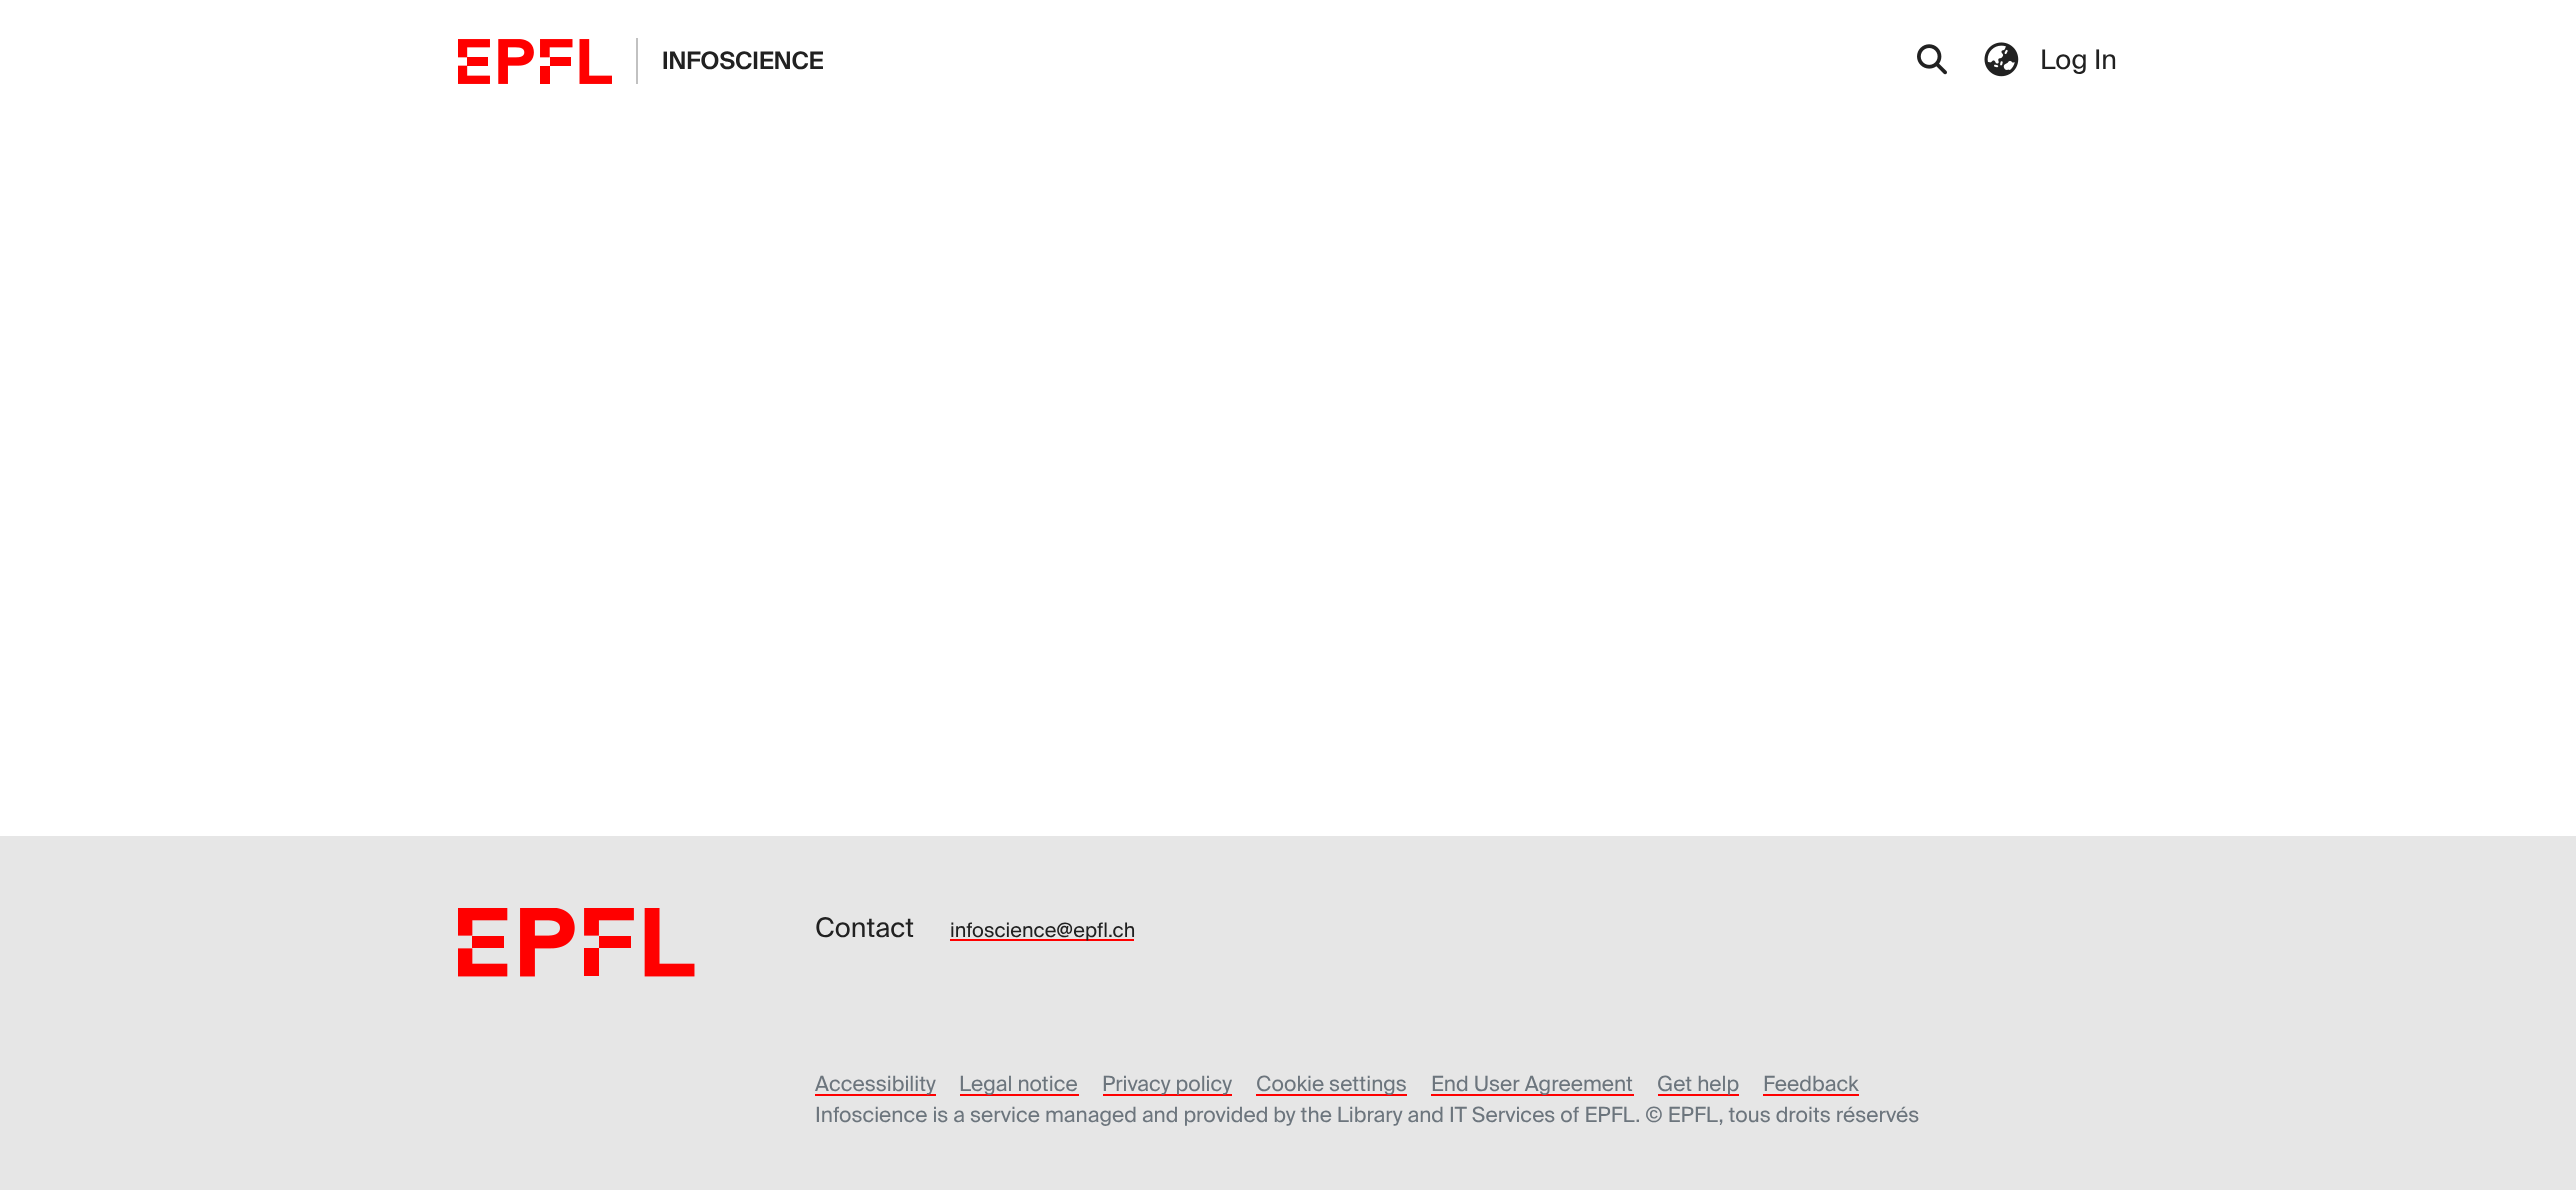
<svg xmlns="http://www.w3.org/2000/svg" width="2576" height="1190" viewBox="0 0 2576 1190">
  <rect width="100%" height="100%" fill="rgb(255,255,255)"/>
  <rect x="636" y="38" width="2" height="46" fill="rgb(193,193,193)"/>
  <image x="458" y="39" width="154" height="45" href="pic1.png"/>
  <text x="662" y="69" font-family="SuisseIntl" font-size="24" font-weight="600" fill="rgb(33,33,33)">INFOSCIENCE</text>
  <image x="1917" y="44" width="30" height="31" href="pic2.png"/>
  <image x="1984" y="42" width="35" height="35" href="pic3.png"/>
  <text x="2040" y="69" font-family="SuisseIntl" font-size="27" fill="rgb(33,33,33)">Log In</text>
  <rect x="0" y="836" width="2576" height="354" fill="rgb(230,230,230)"/>
  <image x="458" y="908" width="237" height="69" href="pic4.png"/>
  <text x="815" y="937" font-family="SuisseIntl" font-size="27" fill="rgb(33,33,33)">Contact</text>
  <rect x="950" y="939" width="184" height="2" fill="rgb(255,0,0)"/>
  <text x="950" y="937" font-family="SuisseIntl" font-size="20" fill="rgb(33,33,33)">infoscience@epfl.ch</text>
  <rect x="815" y="1094" width="121" height="2" fill="rgb(255,0,0)"/>
  <text x="815" y="1091" font-family="SuisseIntl" font-size="21" fill="rgb(108,117,125)">Accessibility</text>
  <rect x="960" y="1094" width="119" height="2" fill="rgb(255,0,0)"/>
  <text x="959" y="1091" font-family="SuisseIntl" font-size="21" fill="rgb(108,117,125)">Legal notice</text>
  <rect x="1103" y="1094" width="129" height="2" fill="rgb(255,0,0)"/>
  <text x="1102" y="1091" font-family="SuisseIntl" font-size="21" fill="rgb(108,117,125)">Privacy policy</text>
  <rect x="1256" y="1094" width="151" height="2" fill="rgb(255,0,0)"/>
  <text x="1256" y="1091" font-family="SuisseIntl" font-size="21" fill="rgb(108,117,125)">Cookie settings</text>
  <rect x="1431" y="1094" width="203" height="2" fill="rgb(255,0,0)"/>
  <text x="1431" y="1091" font-family="SuisseIntl" font-size="21" fill="rgb(108,117,125)">End User Agreement</text>
  <rect x="1658" y="1094" width="81" height="2" fill="rgb(255,0,0)"/>
  <g font-family="SuisseIntl" font-size="21" fill="rgb(108,117,125)">
    <text x="1657" y="1091">Get help</text>
    <text x="1763" y="1091">Feedback</text>
  </g>
  <rect x="1763" y="1094" width="96" height="2" fill="rgb(255,0,0)"/>
  <text x="815" y="1122" font-family="SuisseIntl" font-size="21" fill="rgb(108,117,125)">Infoscience is a service managed and provided by the Library and IT Services of EPFL. © EPFL, tous droits réservés</text>
</svg>
